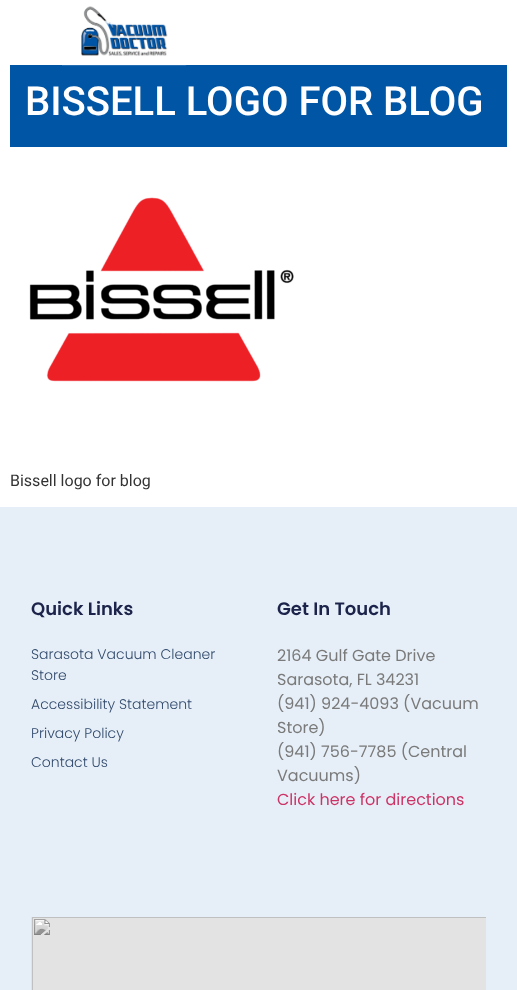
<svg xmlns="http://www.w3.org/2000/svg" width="517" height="990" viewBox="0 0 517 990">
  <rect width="100%" height="100%" fill="rgb(255,255,255)"/>
  <rect x="10" y="65" width="497" height="82" fill="rgb(0,85,164)"/>
  <image x="62" y="6" width="125" height="60" href="pic1.png"/>
  <text x="25" y="115" font-family="Roboto" font-size="40" font-weight="500" fill="rgb(255,255,255)">BISSELL LOGO FOR BLOG</text>
  <image x="29" y="197" width="265" height="185" href="pic2.png"/>
  <text x="10" y="486" font-family="Roboto" font-size="16" fill="rgb(51,51,51)">Bissell logo for blog</text>
  <rect x="0" y="507" width="517" height="483" fill="rgb(230,239,247)"/>
  <text x="31" y="615" font-family="Poppins" font-size="18" font-weight="600" fill="rgb(28,36,75)">Quick Links</text>
  <g font-family="Poppins" font-size="14" font-weight="300" fill="rgb(50,74,109)">
    <text>
      <tspan x="31" y="659">Sarasota Vacuum Cleaner</tspan>
      <tspan x="31" y="680">Store</tspan>
    </text>
    <text x="31" y="709">Accessibility Statement</text>
    <text x="31" y="738">Privacy Policy</text>
    <text x="31" y="767">Contact Us</text>
  </g>
  <text x="277" y="615" font-family="Poppins" font-size="18" font-weight="600" fill="rgb(28,36,75)">Get In Touch</text>
  <g font-family="Poppins" font-size="16" fill="rgb(122,122,122)">
    <text>
      <tspan x="277" y="661">2164 Gulf Gate Drive</tspan>
      <tspan x="277" y="685">Sarasota, FL 34231</tspan>
      <tspan x="277" y="709">(941) 924-4093 (Vacuum</tspan>
      <tspan x="277" y="733">Store)</tspan>
      <tspan x="277" y="757">(941) 756-7785 (Central</tspan>
      <tspan x="277" y="781">Vacuums)</tspan>
    </text>
  </g>
  <text x="277" y="805" font-family="Poppins" font-size="16" fill="rgb(204,51,102)">Click here for directions</text>
  <image x="31" y="917" width="455" height="73" href="pic3.png"/>
</svg>
